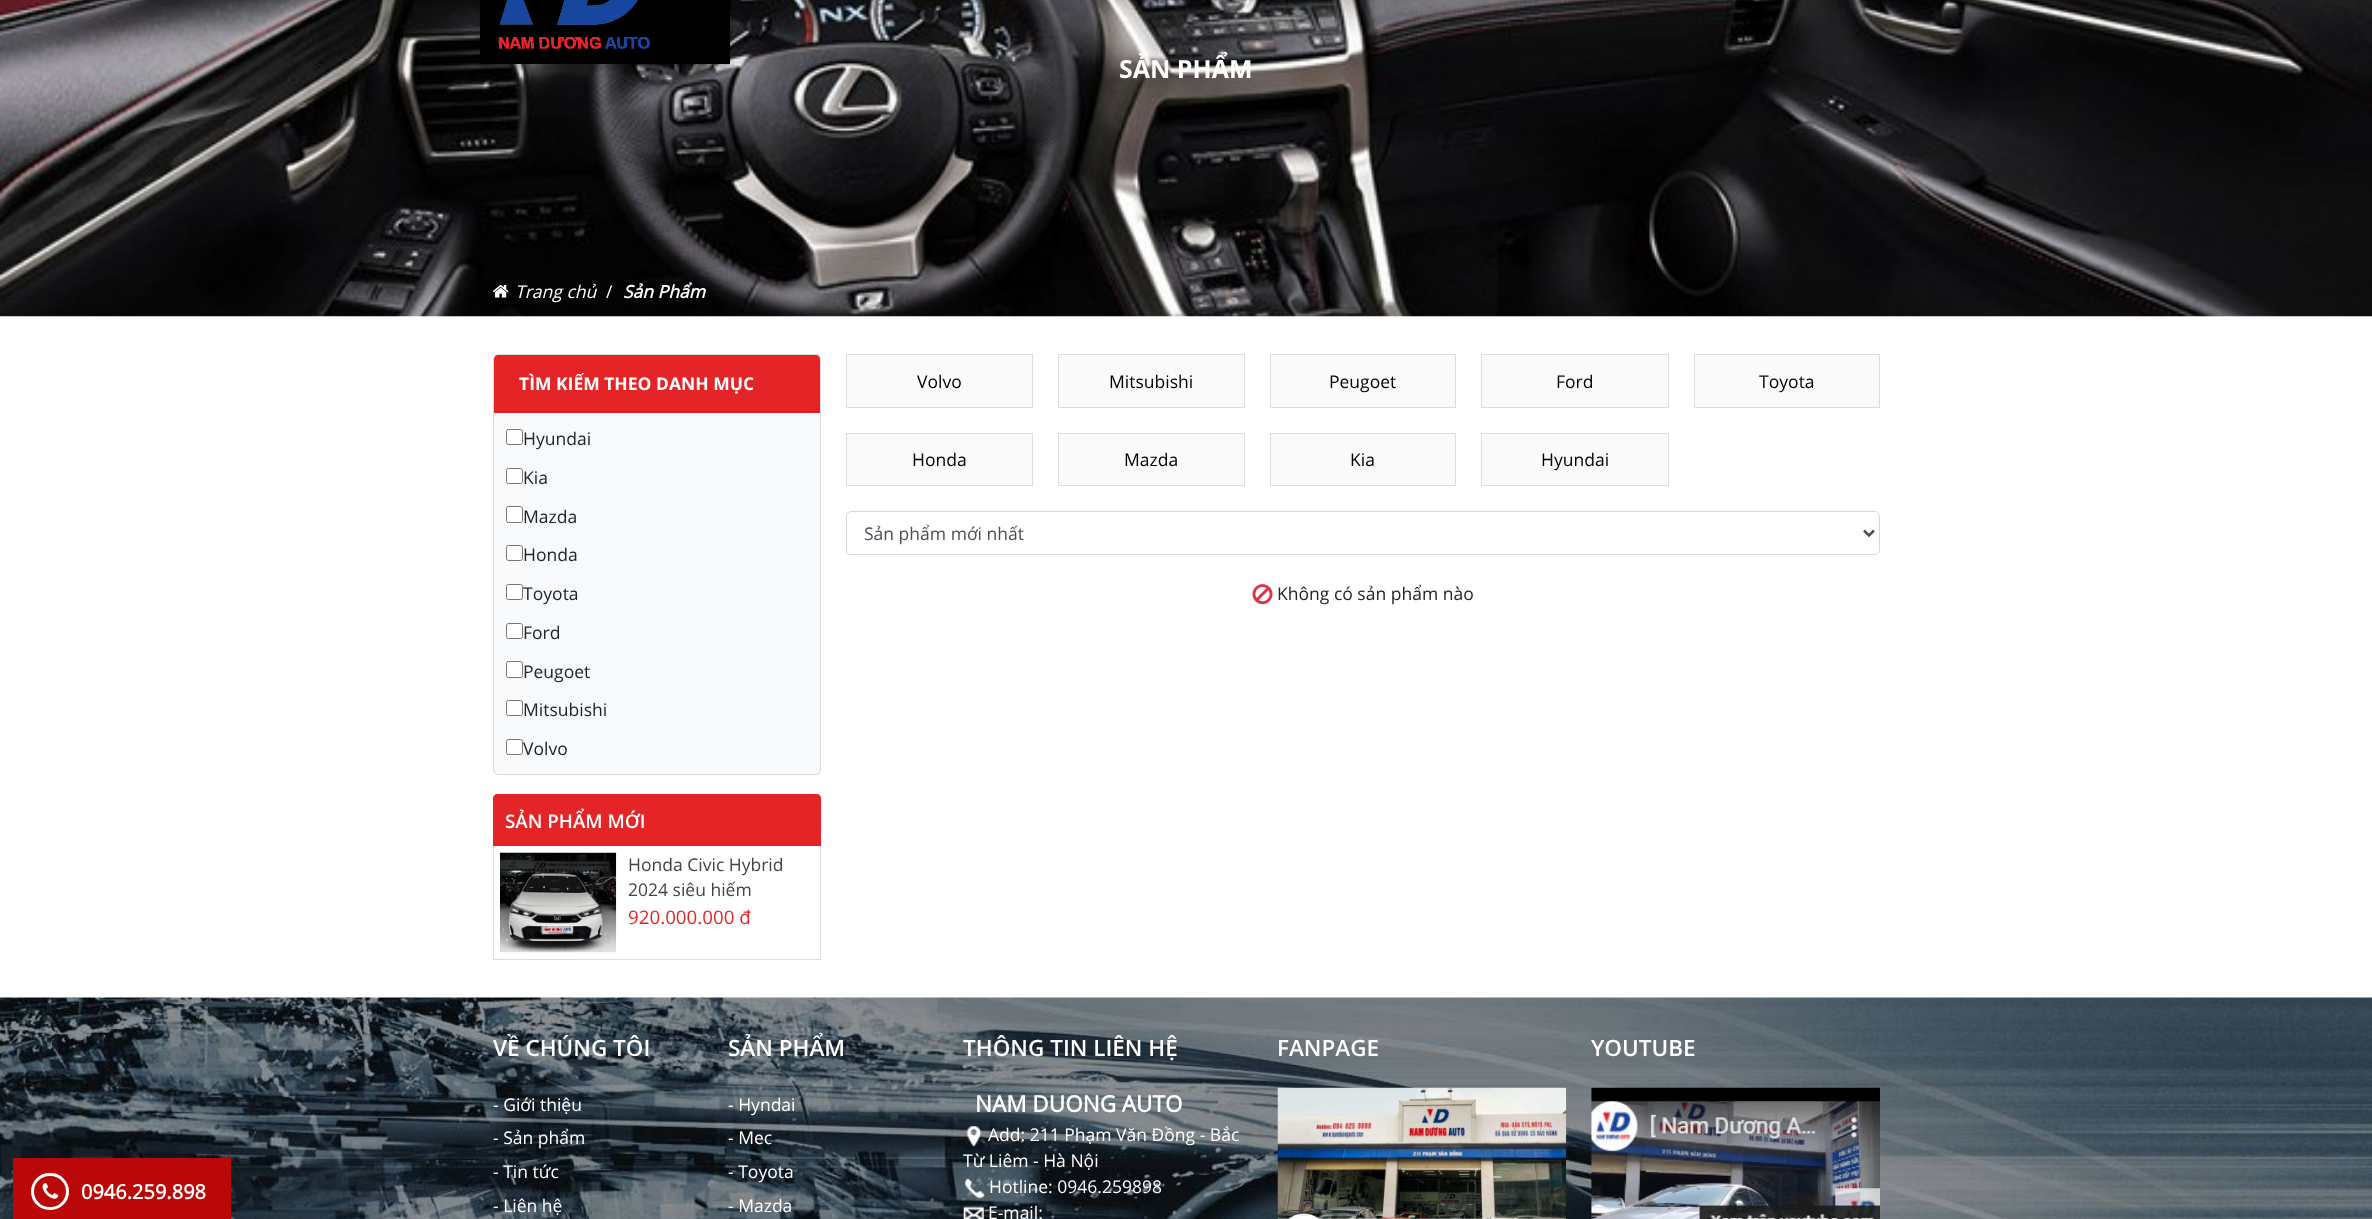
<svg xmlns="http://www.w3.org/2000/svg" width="2372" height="1219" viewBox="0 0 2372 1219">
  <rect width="100%" height="100%" fill="rgb(255,255,255)"/>
  <image x="0" y="0" width="2372" height="317" href="pic2.png"/>
  <rect x="480" y="-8" width="250" height="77" fill="rgba(0,0,0,0.25)" filter="blur(2.5px)"/>
  <rect x="480" y="0" width="250" height="64" fill="rgb(0,0,0)"/>
  <image x="498" y="0" width="152" height="49" href="pic1.png"/>
  <text x="1119" y="78" font-family="Open Sans" font-size="25" font-weight="bold" fill="rgb(255,255,255)">SẢN PHẨM</text>
  <image x="492" y="285" width="17" height="13" href="pic3.png"/>
  <text x="515" y="298" font-family="Open Sans" font-size="17.5" font-style="italic" fill="rgb(255,255,255)">Trang chủ</text>
  <text x="606" y="298" font-family="Open Sans" font-size="17.5" fill="rgb(255,255,255)">/</text>
  <text x="623" y="298" font-family="Open Sans" font-size="17.5" font-weight="bold" font-style="italic" fill="rgb(255,255,255)">Sản Phẩm</text>
  <rect x="493" y="354" width="328" height="421" rx="5" fill="rgb(248,249,250)"/>
  <rect x="493.5" y="354.5" width="327" height="420" rx="4.5" fill="none" stroke="rgba(0,0,0,0.12)"/>
  <path d="M498 355H816C818 355 820 357 820 359V413H494V359C494 357 496 355 498 355Z" fill="rgb(228,36,38)"/>
  <rect x="494" y="411" width="326" height="1" fill="rgb(200,32,33)"/>
  <text x="519" y="390" font-family="Open Sans" font-size="17.5" font-weight="bold" fill="rgb(255,255,255)">TÌM KIẾM THEO DANH MỤC</text>
  <rect x="506.5" y="429.5" width="16" height="15" rx="2" fill="rgb(255,255,255)" stroke="rgb(118,118,118)"/>
  <text x="523" y="445" font-family="Open Sans" font-size="17.5" fill="rgb(33,37,41)">Hyundai</text>
  <rect x="506.5" y="468.5" width="16" height="15" rx="2" fill="rgb(255,255,255)" stroke="rgb(118,118,118)"/>
  <text x="523" y="484" font-family="Open Sans" font-size="17.5" fill="rgb(33,37,41)">Kia</text>
  <rect x="506.5" y="506.5" width="16" height="16" rx="2" fill="rgb(255,255,255)" stroke="rgb(118,118,118)"/>
  <text x="523" y="523" font-family="Open Sans" font-size="17.5" fill="rgb(33,37,41)">Mazda</text>
  <rect x="506.5" y="545.5" width="16" height="15" rx="2" fill="rgb(255,255,255)" stroke="rgb(118,118,118)"/>
  <text x="523" y="561" font-family="Open Sans" font-size="17.5" fill="rgb(33,37,41)">Honda</text>
  <rect x="506.5" y="584.5" width="16" height="15" rx="2" fill="rgb(255,255,255)" stroke="rgb(118,118,118)"/>
  <text x="523" y="600" font-family="Open Sans" font-size="17.5" fill="rgb(33,37,41)">Toyota</text>
  <rect x="506.5" y="623.5" width="16" height="15" rx="2" fill="rgb(255,255,255)" stroke="rgb(118,118,118)"/>
  <text x="523" y="639" font-family="Open Sans" font-size="17.5" fill="rgb(33,37,41)">Ford</text>
  <rect x="506.5" y="661.5" width="16" height="16" rx="2" fill="rgb(255,255,255)" stroke="rgb(118,118,118)"/>
  <text x="523" y="678" font-family="Open Sans" font-size="17.5" fill="rgb(33,37,41)">Peugoet</text>
  <rect x="506.5" y="700.5" width="16" height="15" rx="2" fill="rgb(255,255,255)" stroke="rgb(118,118,118)"/>
  <text x="523" y="716" font-family="Open Sans" font-size="17.5" fill="rgb(33,37,41)">Mitsubishi</text>
  <rect x="506.5" y="739.5" width="16" height="15" rx="2" fill="rgb(255,255,255)" stroke="rgb(118,118,118)"/>
  <text x="523" y="755" font-family="Open Sans" font-size="17.5" fill="rgb(33,37,41)">Volvo</text>
  <path d="M497 794H817C819 794 821 796 821 798V846H493V798C493 796 495 794 497 794Z" fill="rgb(228,36,38)"/>
  <text x="505" y="828" font-family="Open Sans" font-size="18.75" font-weight="600" fill="rgb(255,255,255)">SẢN PHẨM MỚI</text>
  <rect x="820" y="846" width="1" height="114" fill="rgb(221,221,221)"/>
  <rect x="493" y="959" width="328" height="1" fill="rgb(221,221,221)"/>
  <rect x="493" y="846" width="1" height="114" fill="rgb(221,221,221)"/>
  <image x="500" y="852" width="117" height="101" href="pic4.png"/>
  <g font-family="Open Sans" font-size="17.5" fill="rgb(68,68,68)">
    <text>
      <tspan x="628" y="871">Honda Civic Hybrid</tspan>
      <tspan x="628" y="896">2024 siêu hiếm</tspan>
    </text>
  </g>
  <text x="628" y="924" font-family="Open Sans" font-size="18.75" fill="rgb(228,36,38)">920.000.000 đ</text>
  <rect x="846.5" y="354.5" width="186" height="53" fill="rgb(250,250,250)" stroke="rgb(221,221,221)"/>
  <text x="917" y="388" font-family="Open Sans" font-size="17.5" fill="rgb(0,0,0)">Volvo</text>
  <rect x="1058.5" y="354.5" width="186" height="53" fill="rgb(250,250,250)" stroke="rgb(221,221,221)"/>
  <text x="1109" y="388" font-family="Open Sans" font-size="17.5" fill="rgb(0,0,0)">Mitsubishi</text>
  <rect x="1270.5" y="354.5" width="185" height="53" fill="rgb(250,250,250)" stroke="rgb(221,221,221)"/>
  <text x="1329" y="388" font-family="Open Sans" font-size="17.5" fill="rgb(0,0,0)">Peugoet</text>
  <rect x="1481.5" y="354.5" width="187" height="53" fill="rgb(250,250,250)" stroke="rgb(221,221,221)"/>
  <text x="1556" y="388" font-family="Open Sans" font-size="17.5" fill="rgb(0,0,0)">Ford</text>
  <rect x="1694.5" y="354.5" width="185" height="53" fill="rgb(250,250,250)" stroke="rgb(221,221,221)"/>
  <text x="1759" y="388" font-family="Open Sans" font-size="17.5" fill="rgb(0,0,0)">Toyota</text>
  <rect x="846.5" y="433.5" width="186" height="52" fill="rgb(250,250,250)" stroke="rgb(221,221,221)"/>
  <text x="912" y="466" font-family="Open Sans" font-size="17.5" fill="rgb(0,0,0)">Honda</text>
  <rect x="1058.5" y="433.5" width="186" height="52" fill="rgb(250,250,250)" stroke="rgb(221,221,221)"/>
  <text x="1124" y="466" font-family="Open Sans" font-size="17.5" fill="rgb(0,0,0)">Mazda</text>
  <rect x="1270.5" y="433.5" width="185" height="52" fill="rgb(250,250,250)" stroke="rgb(221,221,221)"/>
  <text x="1350" y="466" font-family="Open Sans" font-size="17.5" fill="rgb(0,0,0)">Kia</text>
  <rect x="1481.5" y="433.5" width="187" height="52" fill="rgb(250,250,250)" stroke="rgb(221,221,221)"/>
  <text x="1541" y="466" font-family="Open Sans" font-size="17.5" fill="rgb(0,0,0)">Hyundai</text>
  <rect x="846.5" y="511.5" width="1033" height="43" rx="4.5" fill="none" stroke="rgb(215,215,215)"/>
  <path d="M1864 530.5L1869 535.5L1874 530.5" fill="none" stroke="rgb(73,80,87)" stroke-width="2.5"/>
  <text x="864" y="540" font-family="Open Sans" font-size="17.5" fill="rgb(73,80,87)">Sản phẩm mới nhất</text>
  <image x="1252" y="584" width="21" height="21" href="pic5.png"/>
  <text x="1277" y="600" font-family="Open Sans" font-size="17.5" fill="rgb(33,37,41)">Không có sản phẩm nào</text>
  <image x="0" y="997" width="2372" height="222" href="pic7.png"/>
  <rect x="13" y="1158" width="218" height="61" fill="rgb(186,8,8)"/>
  <rect x="32.5" y="1174.5" width="35" height="34" rx="17" fill="none" stroke="rgb(255,255,255)" stroke-width="3"/>
  <image x="42" y="1183" width="17" height="16" href="pic6.png"/>
  <text x="81" y="1199" font-family="'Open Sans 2'" font-size="20" font-weight="bold" fill="rgb(255,255,255)">0946.259.898</text>
  <text x="493" y="1056" font-family="Open Sans" font-size="22.5" font-weight="600" fill="rgb(255,255,255)">VỀ CHÚNG TÔI</text>
  <g font-family="Open Sans" font-size="17.5" fill="rgb(255,255,255)">
    <text>
      <tspan x="493" y="1111">- Giới thiệu</tspan>
      <tspan x="493" y="1144">- Sản phẩm</tspan>
      <tspan x="493" y="1178">- Tin tức</tspan>
      <tspan x="493" y="1212">- Liên hệ</tspan>
    </text>
  </g>
  <text x="728" y="1056" font-family="Open Sans" font-size="22.5" font-weight="600" fill="rgb(255,255,255)">SẢN PHẨM</text>
  <g font-family="Open Sans" font-size="17.5" fill="rgb(255,255,255)">
    <text>
      <tspan x="728" y="1111">- Hyndai</tspan>
      <tspan x="728" y="1144">- Mec</tspan>
      <tspan x="728" y="1178">- Toyota</tspan>
      <tspan x="728" y="1212">- Mazda</tspan>
    </text>
  </g>
  <text x="963" y="1056" font-family="Open Sans" font-size="22.5" font-weight="600" fill="rgb(255,255,255)">THÔNG TIN LIÊN HỆ</text>
  <text x="975" y="1112" font-family="'Open Sans 2'" font-size="22.5" font-weight="bold" fill="rgb(255,255,255)">NAM DUONG AUTO</text>
  <image x="966" y="1126" width="16" height="21" href="pic8.png"/>
  <g font-family="Open Sans" font-size="17.5" fill="rgb(255,255,255)">
    <text x="988" y="1141">Add: 211 Phạm Văn Đồng - Bắc</text>
    <text x="963" y="1167">Từ Liêm - Hà Nội</text>
  </g>
  <image x="964" y="1178" width="21" height="21" href="pic9.png"/>
  <text x="989" y="1193" font-family="Open Sans" font-size="17.5" fill="rgb(255,255,255)">Hotline: 0946.259898</text>
  <image x="963" y="1206" width="21" height="13" href="pic10.png"/>
  <text x="988" y="1219" font-family="Open Sans" font-size="17.5" fill="rgb(255,255,255)">E-mail:</text>
  <text x="1277" y="1056" font-family="Open Sans" font-size="22.5" font-weight="600" fill="rgb(255,255,255)">FANPAGE</text>
  <image x="1277" y="1087" width="290" height="132" href="pic11.png"/>
  <text x="1591" y="1056" font-family="Open Sans" font-size="22.5" font-weight="600" fill="rgb(255,255,255)">YOUTUBE</text>
  <image x="1591" y="1087" width="289" height="132" href="pic12.png"/>
</svg>
